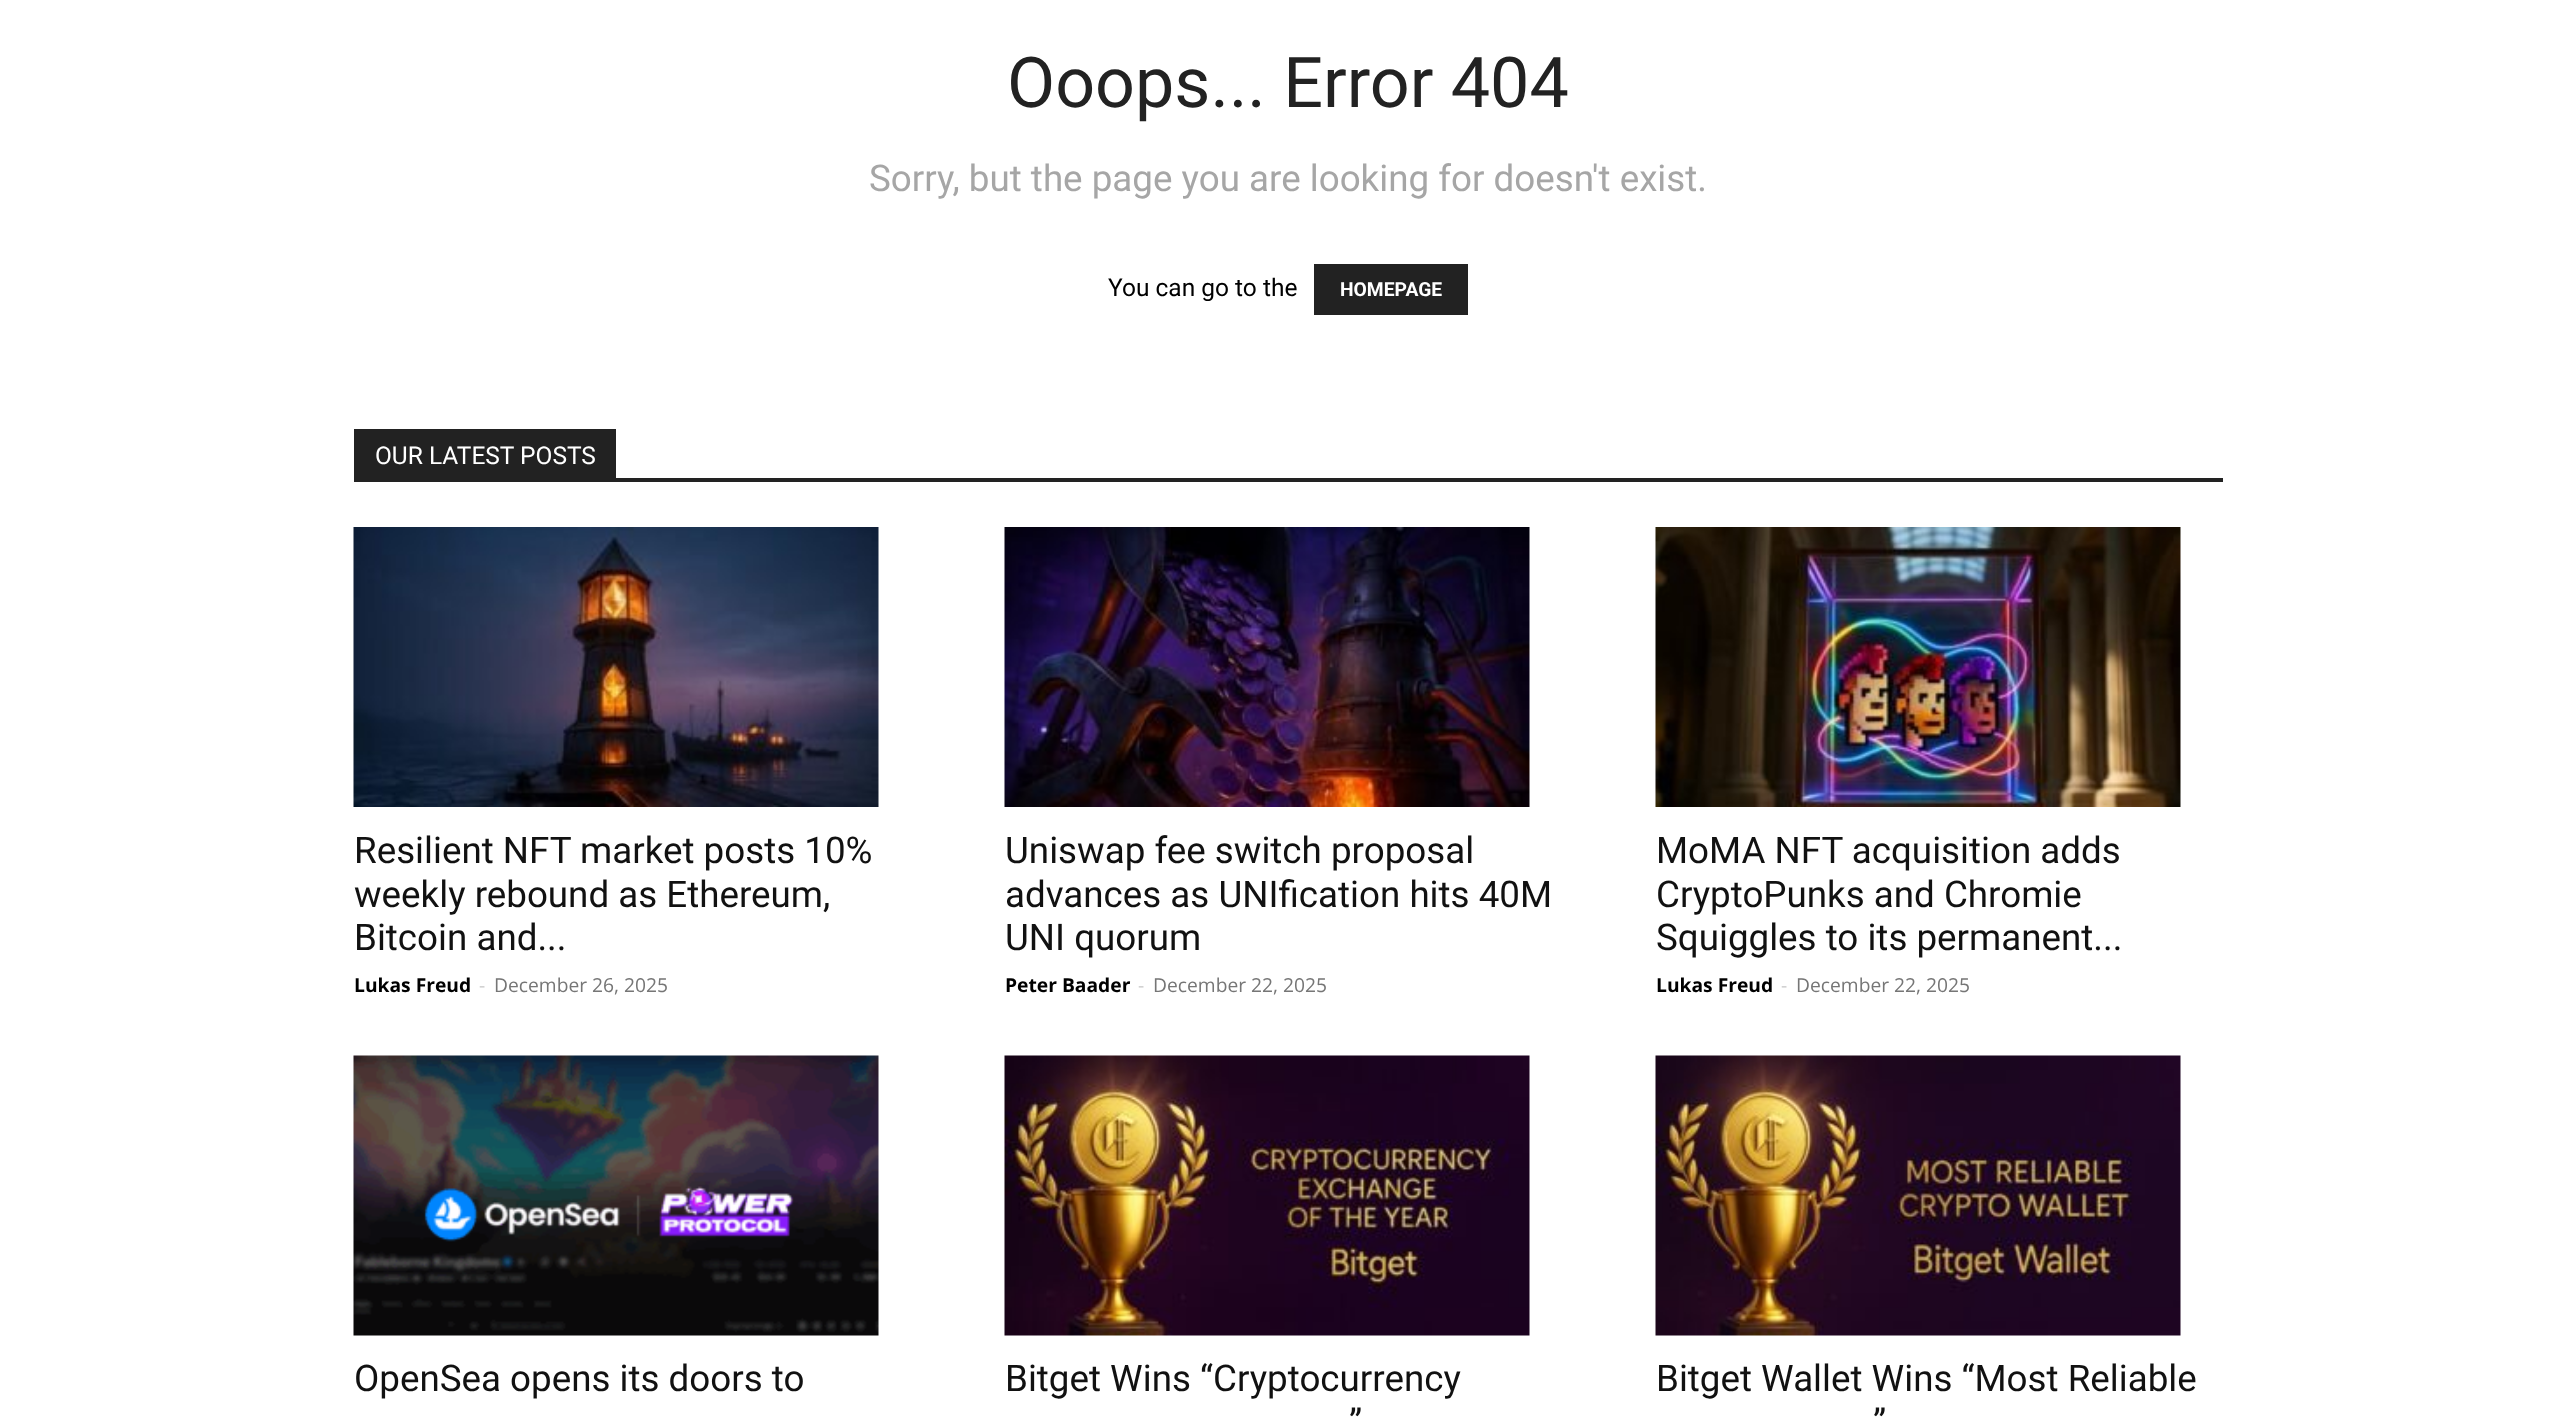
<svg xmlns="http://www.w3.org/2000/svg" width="2576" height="1427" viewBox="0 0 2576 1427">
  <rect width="100%" height="100%" fill="rgb(255,255,255)"/>
  <text x="1007" y="107" font-family="Roboto" font-size="70" fill="rgb(34,34,34)">Ooops... Error 404</text>
  <text x="869" y="191" font-family="Roboto" font-size="36.75" fill="rgb(166,166,166)">Sorry, but the page you are looking for doesn't exist.</text>
  <text x="1108" y="296" font-family="Roboto" font-size="24.5" fill="rgb(0,0,0)">You can go to the</text>
  <rect x="1314" y="264" width="154" height="51" fill="rgb(34,34,34)"/>
  <text x="1340" y="296" font-family="Roboto" font-size="19.25" font-weight="bold" fill="rgb(255,255,255)">HOMEPAGE</text>
  <rect x="354" y="478" width="1869" height="4" fill="rgb(34,34,34)"/>
  <rect x="354" y="429" width="262" height="49" fill="rgb(34,34,34)"/>
  <text x="375" y="464" font-family="Roboto" font-size="24.5" fill="rgb(255,255,255)">OUR LATEST POSTS</text>
  <image x="353" y="527" width="526" height="280" href="pic1.png"/>
  <g font-family="Roboto" font-size="36.75" fill="rgb(17,17,17)">
    <text>
      <tspan x="354" y="863">Resilient NFT market posts 10%</tspan>
      <tspan x="354" y="907">weekly rebound as Ethereum,</tspan>
      <tspan x="354" y="950">Bitcoin and...</tspan>
    </text>
  </g>
  <text x="354" y="992" font-family="Open Sans" font-size="19.25" font-weight="bold" fill="rgb(0,0,0)">Lukas Freud</text>
  <text x="479" y="992" font-family="Open Sans" font-size="19.25" fill="rgb(204,204,204)">-</text>
  <text x="494" y="992" font-family="Open Sans" font-size="19.25" fill="rgb(118,118,118)">December 26, 2025</text>
  <image x="1004" y="527" width="526" height="280" href="pic2.png"/>
  <g font-family="Roboto" font-size="36.75" fill="rgb(17,17,17)">
    <text>
      <tspan x="1005" y="863">Uniswap fee switch proposal</tspan>
      <tspan x="1005" y="907">advances as UNIfication hits 40M</tspan>
      <tspan x="1005" y="950">UNI quorum</tspan>
    </text>
  </g>
  <text x="1005" y="992" font-family="Open Sans" font-size="19.25" font-weight="bold" fill="rgb(0,0,0)">Peter Baader</text>
  <text x="1138" y="992" font-family="Open Sans" font-size="19.25" fill="rgb(204,204,204)">-</text>
  <text x="1153" y="992" font-family="Open Sans" font-size="19.25" fill="rgb(118,118,118)">December 22, 2025</text>
  <image x="1655" y="527" width="526" height="280" href="pic3.png"/>
  <g font-family="Roboto" font-size="36.75" fill="rgb(17,17,17)">
    <text>
      <tspan x="1656" y="863">MoMA NFT acquisition adds</tspan>
      <tspan x="1656" y="907">CryptoPunks and Chromie</tspan>
      <tspan x="1656" y="950">Squiggles to its permanent...</tspan>
    </text>
  </g>
  <text x="1656" y="992" font-family="Open Sans" font-size="19.25" font-weight="bold" fill="rgb(0,0,0)">Lukas Freud</text>
  <text x="1781" y="992" font-family="Open Sans" font-size="19.25" fill="rgb(204,204,204)">-</text>
  <text x="1796" y="992" font-family="Open Sans" font-size="19.25" fill="rgb(118,118,118)">December 22, 2025</text>
  <image x="353" y="1055" width="526" height="281" href="pic4.png"/>
  <text x="354" y="1391" font-family="Roboto" font-size="36.75" fill="rgb(17,17,17)">OpenSea opens its doors to</text>
  <image x="1004" y="1055" width="526" height="281" href="pic5.png"/>
  <g font-family="Roboto" font-size="36.75" fill="rgb(17,17,17)">
    <text x="1005" y="1391">Bitget Wins “Cryptocurrency</text>
    <text x="1349" y="1435">”</text>
  </g>
  <image x="1655" y="1055" width="526" height="281" href="pic6.png"/>
  <g font-family="Roboto" font-size="36.75" fill="rgb(17,17,17)">
    <text x="1656" y="1391">Bitget Wallet Wins “Most Reliable</text>
    <text x="1873" y="1435">”</text>
  </g>
</svg>
